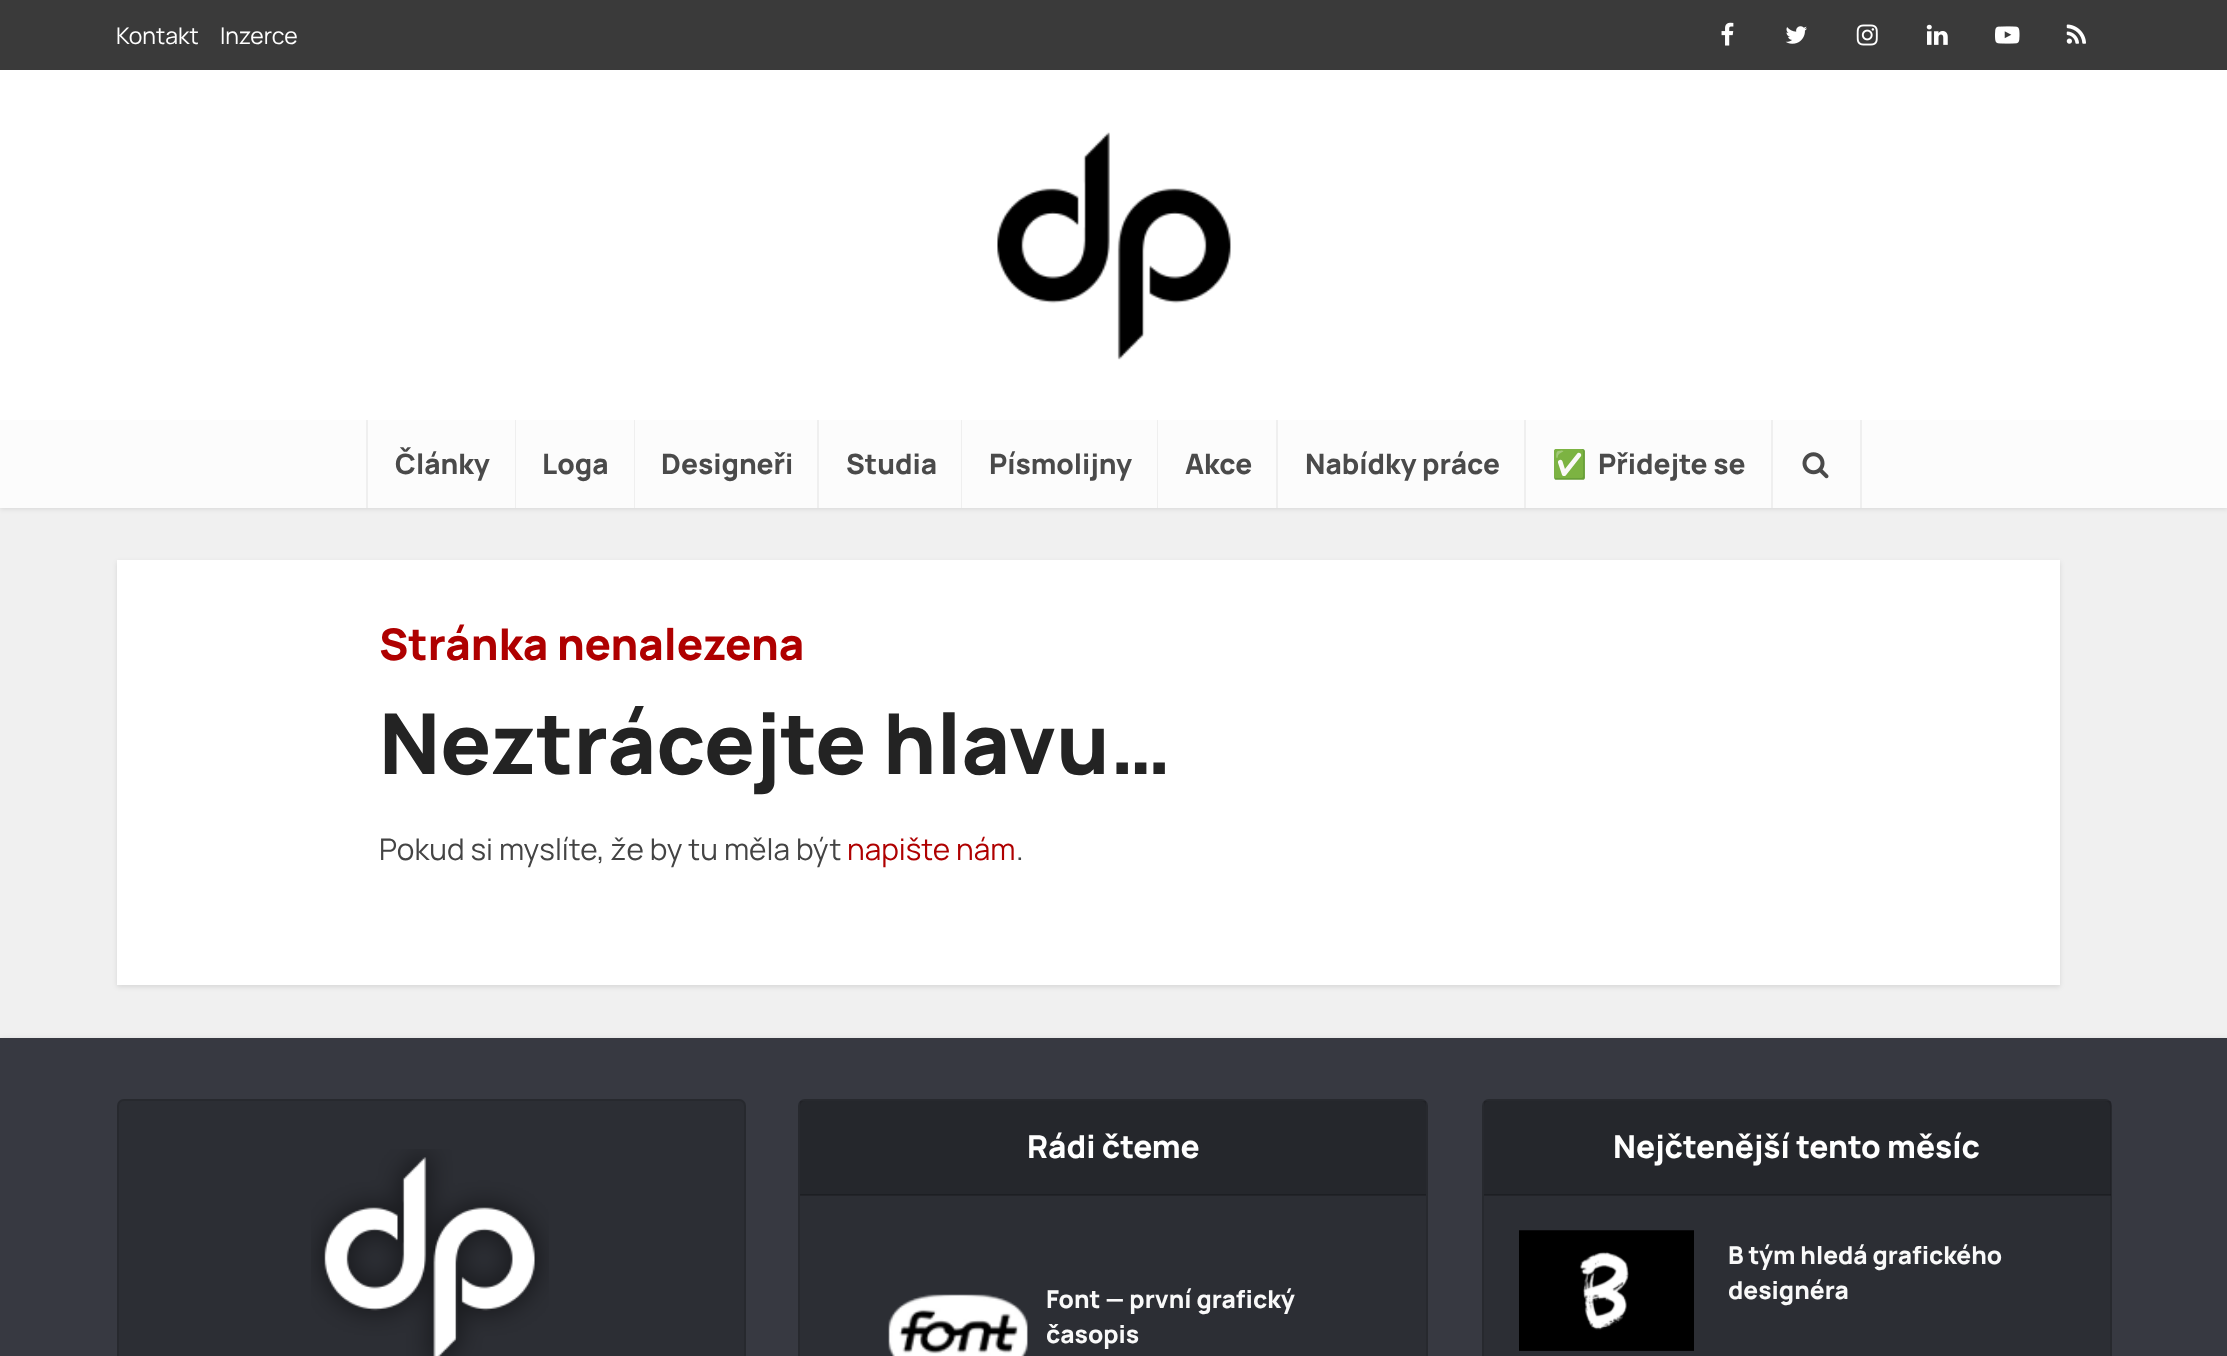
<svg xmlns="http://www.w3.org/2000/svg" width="2227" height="1356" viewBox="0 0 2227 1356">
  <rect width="100%" height="100%" fill="rgb(240,240,240)"/>
  <rect x="0" y="2" width="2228" height="507" fill="rgba(0,0,0,0.1)" filter="blur(2.5px)"/>
  <rect x="0" y="70" width="2227" height="350" fill="rgb(255,255,255)"/>
  <rect x="0" y="0" width="2227" height="70" fill="rgb(58,58,58)"/>
  <g font-family="Manrope" font-size="23" fill="rgb(255,255,255)">
    <text x="116" y="44">Kontakt</text>
    <text x="220" y="44">Inzerce</text>
  </g>
  <image x="1721" y="22" width="13" height="24" href="pic1.png"/>
  <image x="1785" y="26" width="22" height="18" href="pic2.png"/>
  <image x="1856" y="24" width="22" height="22" href="pic3.png"/>
  <image x="1926" y="24" width="22" height="21" href="pic4.png"/>
  <image x="1995" y="26" width="25" height="18" href="pic5.png"/>
  <image x="2066" y="24" width="20" height="20" href="pic6.png"/>
  <image x="997" y="132" width="234" height="228" href="pic7.png"/>
  <rect x="0" y="420" width="2227" height="88" fill="rgb(252,252,252)"/>
  <path d="M366 420V508H515H368V420Z" fill="rgb(239,239,239)"/>
  <text x="395" y="474" font-family="Manrope" font-size="28" font-weight="800" fill="rgb(74,74,74)">Články</text>
  <path d="M515 420V508H634H516V420Z" fill="rgb(239,239,239)"/>
  <text x="542" y="474" font-family="Manrope" font-size="28" font-weight="800" fill="rgb(74,74,74)">Loga</text>
  <path d="M634 420V508H817H635V420Z" fill="rgb(239,239,239)"/>
  <text x="661" y="474" font-family="Manrope" font-size="28" font-weight="800" fill="rgb(74,74,74)">Designeři</text>
  <path d="M817 420V508H961H819V420Z" fill="rgb(239,239,239)"/>
  <text x="846" y="474" font-family="Manrope" font-size="28" font-weight="800" fill="rgb(74,74,74)">Studia</text>
  <path d="M961 420V508H1157H962V420Z" fill="rgb(239,239,239)"/>
  <text x="989" y="474" font-family="Manrope" font-size="28" font-weight="800" fill="rgb(74,74,74)">Písmolijny</text>
  <path d="M1157 420V508H1276H1158V420Z" fill="rgb(239,239,239)"/>
  <text x="1185" y="474" font-family="Manrope" font-size="28" font-weight="800" fill="rgb(74,74,74)">Akce</text>
  <path d="M1276 420V508H1524H1278V420Z" fill="rgb(239,239,239)"/>
  <text x="1305" y="474" font-family="Manrope" font-size="28" font-weight="800" fill="rgb(74,74,74)">Nabídky práce</text>
  <path d="M1524 420V508H1771H1526V420Z" fill="rgb(239,239,239)"/>
  <text x="1552" y="474" font-family="Noto Color Emoji" font-size="28" font-weight="bold" fill="rgb(74,74,74)">✅</text>
  <text x="1598" y="474" font-family="Manrope" font-size="28" font-weight="800" fill="rgb(74,74,74)">Přidejte se</text>
  <path d="M1775 508H1862V420H1860V508Z" fill="rgb(239,239,239)"/>
  <path d="M1771 420V508H1859H1773V420Z" fill="rgb(239,239,239)"/>
  <image x="1802" y="452" width="27" height="27" href="pic8.png"/>
  <rect x="117" y="562" width="1943" height="425" fill="rgba(0,0,0,0.1)" filter="blur(2.5px)"/>
  <rect x="117" y="560" width="1943" height="425" fill="rgb(255,255,255)"/>
  <text x="379" y="660" font-family="Manrope" font-size="43.75" font-weight="800" fill="rgb(175,0,0)">Stránka nenalezena</text>
  <text x="379" y="774" font-family="Manrope" font-size="84" font-weight="800" fill="rgb(35,35,35)">Neztrácejte hlavu…</text>
  <text x="379" y="860" font-family="Manrope" font-size="29.75" fill="rgb(68,68,68)">Pokud si myslíte, že by tu měla být</text>
  <text x="847" y="860" font-family="Manrope" font-size="29.75" fill="rgb(175,0,0)">napište nám</text>
  <text x="1016" y="860" font-family="Manrope" font-size="29.75" fill="rgb(68,68,68)">.</text>
  <rect x="0" y="1041" width="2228" height="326" fill="rgba(0,0,0,0.2)" filter="blur(3.5px)"/>
  <rect x="0" y="1038" width="2227" height="318" fill="rgb(55,57,65)"/>
  <rect x="117" y="1099" width="629" height="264" rx="7" fill="rgb(44,46,52)"/>
  <rect x="118" y="1100" width="627" height="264" rx="6" fill="none" stroke="rgba(0,0,0,0.1)" stroke-width="2"/>
  <image x="311" y="1149" width="238" height="207" href="pic9.png"/>
  <rect x="798" y="1099" width="630" height="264" rx="7" fill="rgb(44,46,52)"/>
  <rect x="799" y="1100" width="628" height="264" rx="6" fill="none" stroke="rgba(0,0,0,0.1)" stroke-width="2"/>
  <rect x="800" y="1101" width="626" height="94" fill="rgba(0,0,0,0.15)"/>
  <rect x="800" y="1194" width="626" height="2" fill="rgba(0,0,0,0.2)"/>
  <text x="1027" y="1158" font-family="Manrope" font-size="31.5" font-weight="800" fill="rgb(255,255,255)">Rádi čteme</text>
  <image x="888" y="1294" width="140" height="62" href="pic10.png"/>
  <g font-family="Manrope" font-size="24.5" font-weight="800" fill="rgb(249,249,249)">
    <text>
      <tspan x="1046" y="1308">Font — první grafický</tspan>
      <tspan x="1046" y="1343">časopis</tspan>
    </text>
  </g>
  <rect x="1482" y="1099" width="630" height="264" rx="7" fill="rgb(44,46,52)"/>
  <rect x="1483" y="1100" width="628" height="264" rx="6" fill="none" stroke="rgba(0,0,0,0.1)" stroke-width="2"/>
  <rect x="1484" y="1101" width="627" height="94" fill="rgba(0,0,0,0.15)"/>
  <rect x="1484" y="1194" width="627" height="2" fill="rgba(0,0,0,0.2)"/>
  <text x="1613" y="1158" font-family="Manrope" font-size="31.5" font-weight="800" fill="rgb(255,255,255)">Nejčtenější tento měsíc</text>
  <image x="1519" y="1230" width="175" height="121" href="pic11.png"/>
  <g font-family="Manrope" font-size="24.5" font-weight="800" fill="rgb(249,249,249)">
    <text>
      <tspan x="1728" y="1264">B tým hledá grafického</tspan>
      <tspan x="1728" y="1299">designéra</tspan>
    </text>
  </g>
</svg>
